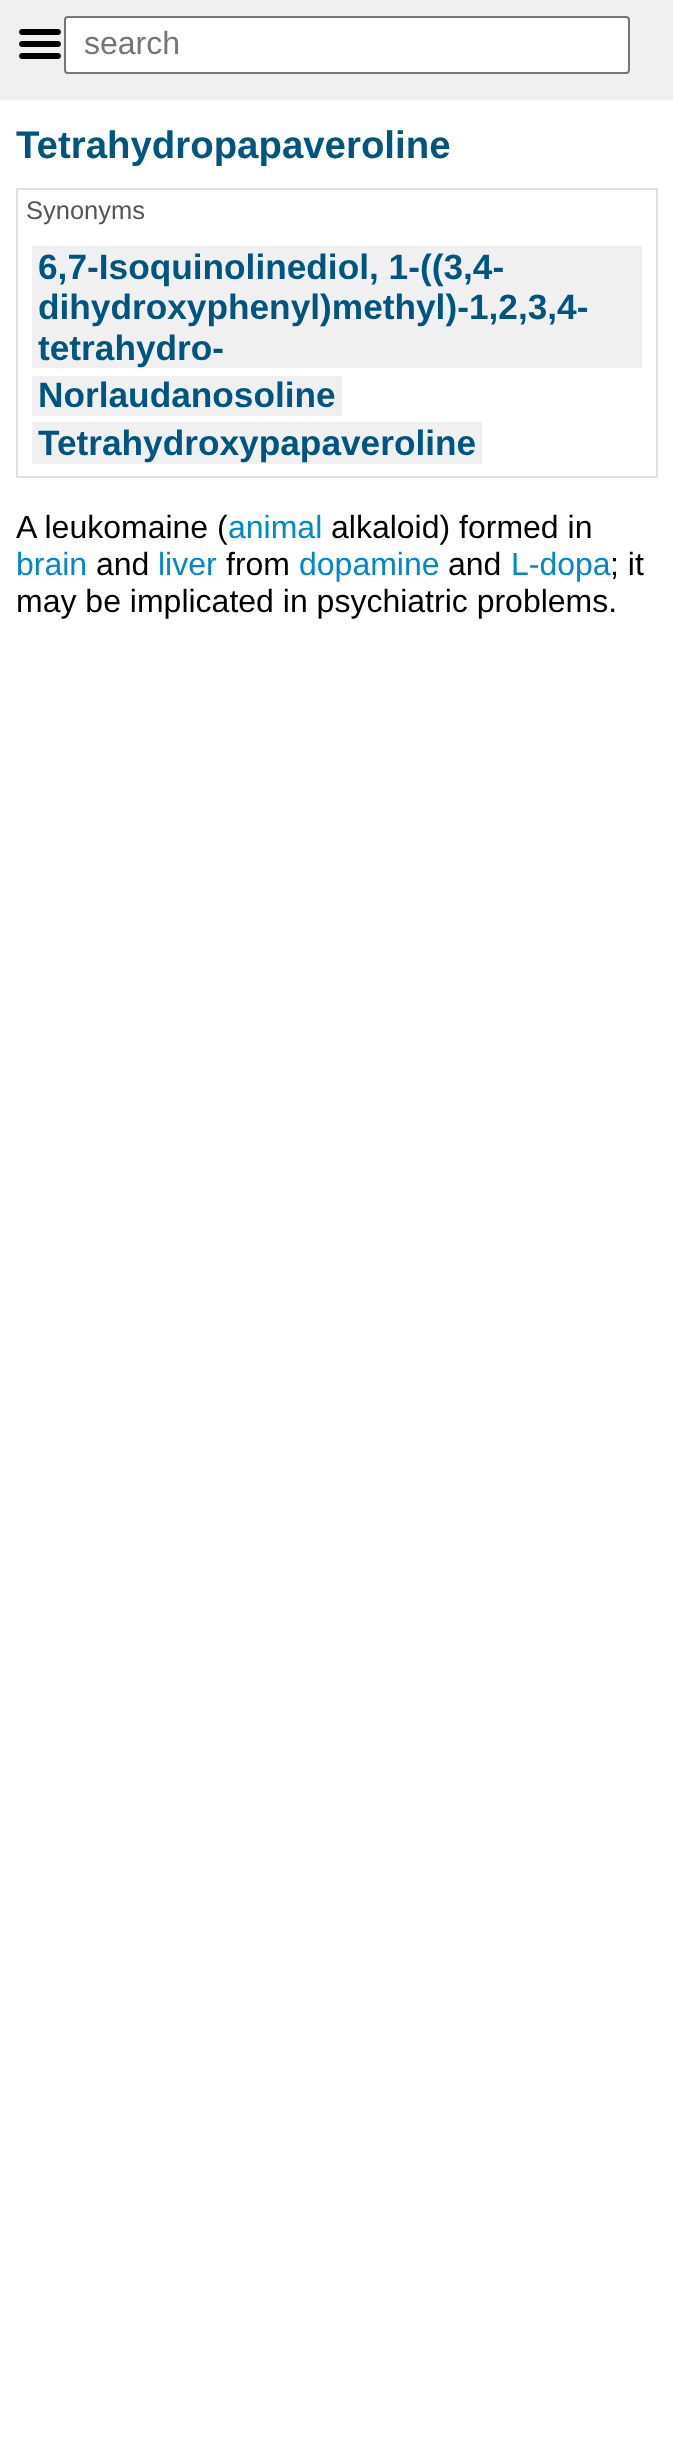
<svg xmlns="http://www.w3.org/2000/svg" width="673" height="2441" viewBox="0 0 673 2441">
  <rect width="100%" height="100%" fill="rgb(255,255,255)"/>
  <rect x="0" y="0" width="673" height="100" fill="rgb(240,240,240)"/>
  <image x="19" y="29" width="42" height="30" href="pic1.png"/>
  <rect x="65" y="17" width="564" height="56" rx="3" fill="rgb(255,255,255)" stroke="rgb(118,118,118)" stroke-width="2"/>
  <text x="84" y="54" font-family="Liberation Sans" font-size="32" fill="rgb(117,117,117)">search</text>
  <text x="16" y="158" font-family="Liberation Sans" font-size="38.4" font-weight="bold" fill="rgb(0,85,128)">Tetrahydropapaveroline</text>
  <rect x="17" y="189" width="640" height="288" fill="none" stroke="rgb(224,224,224)" stroke-width="2"/>
  <text x="26" y="219" font-family="Liberation Sans" font-size="25.5" fill="rgb(85,85,85)">Synonyms</text>
  <rect x="32" y="246" width="610" height="122" fill="rgb(240,240,240)"/>
  <g font-family="Liberation Sans" font-size="35.25" font-weight="bold" fill="rgb(0,85,128)">
    <text>
      <tspan x="38" y="279">6,7-Isoquinolinediol, 1-((3,4-</tspan>
      <tspan x="38" y="319">dihydroxyphenyl)methyl)-1,2,3,4-</tspan>
      <tspan x="38" y="360">tetrahydro-</tspan>
    </text>
  </g>
  <rect x="32" y="376" width="310" height="40" fill="rgb(240,240,240)"/>
  <text x="38" y="407" font-family="Liberation Sans" font-size="35.25" font-weight="bold" fill="rgb(0,85,128)">Norlaudanosoline</text>
  <rect x="32" y="422" width="450" height="42" fill="rgb(240,240,240)"/>
  <text x="38" y="455" font-family="Liberation Sans" font-size="35.25" font-weight="bold" fill="rgb(0,85,128)">Tetrahydroxypapaveroline</text>
  <text x="16" y="538" font-family="Liberation Sans" font-size="32" fill="rgb(0,0,0)">A leukomaine (</text>
  <text x="228" y="538" font-family="Liberation Sans" font-size="32" fill="rgb(0,136,204)">animal</text>
  <text x="331" y="538" font-family="Liberation Sans" font-size="32" fill="rgb(0,0,0)">alkaloid) formed in</text>
  <text x="16" y="575" font-family="Liberation Sans" font-size="32" fill="rgb(0,136,204)">brain</text>
  <text x="96" y="575" font-family="Liberation Sans" font-size="32" fill="rgb(0,0,0)">and</text>
  <text x="158" y="575" font-family="Liberation Sans" font-size="32" fill="rgb(0,136,204)">liver</text>
  <text x="226" y="575" font-family="Liberation Sans" font-size="32" fill="rgb(0,0,0)">from</text>
  <text x="299" y="575" font-family="Liberation Sans" font-size="32" fill="rgb(0,136,204)">dopamine</text>
  <text x="448" y="575" font-family="Liberation Sans" font-size="32" fill="rgb(0,0,0)">and</text>
  <text x="511" y="575" font-family="Liberation Sans" font-size="32" fill="rgb(0,136,204)">L-dopa</text>
  <g font-family="Liberation Sans" font-size="32" fill="rgb(0,0,0)">
    <text x="610" y="575">; it</text>
    <text x="16" y="612">may be implicated in psychiatric problems.</text>
  </g>
</svg>
